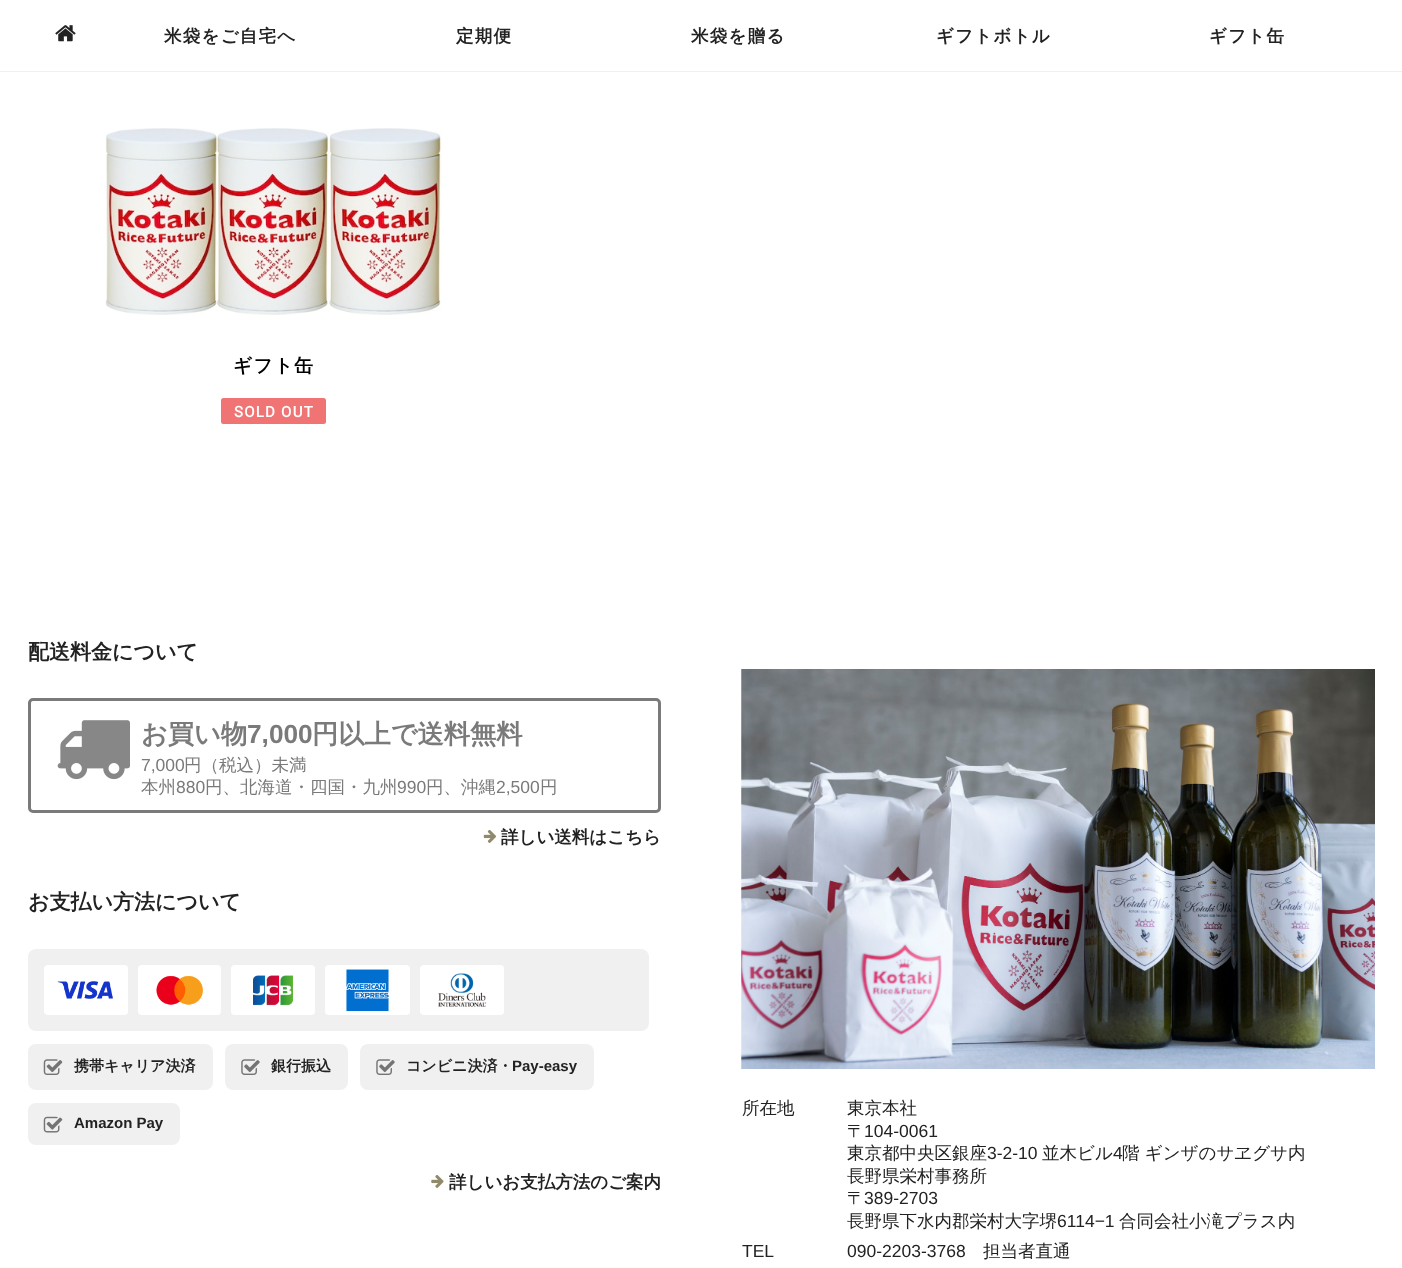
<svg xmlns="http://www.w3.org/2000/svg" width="1402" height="1268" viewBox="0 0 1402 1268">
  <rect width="100%" height="100%" fill="rgb(255,255,255)"/>
  <rect x="0" y="71" width="1402" height="1" fill="rgb(240,240,240)"/>
  <image x="55" y="25" width="21" height="17" href="pic1.png"/>
  <g font-family="WenQuanYi Zen Hei" font-size="17.5" font-weight="bold" letter-spacing="1.25" fill="rgb(34,34,34)">
    <text x="164" y="42">米袋をご自宅へ</text>
    <text x="456" y="42">定期便</text>
    <text x="691" y="42">米袋を贈る</text>
    <text x="936" y="42">ギフトボトル</text>
    <text x="1209" y="42">ギフト缶</text>
  </g>
  <image x="105" y="128" width="337" height="187" href="pic2.png"/>
  <text x="233" y="372" font-family="WenQuanYi Zen Hei" font-size="18.75" font-weight="bold" letter-spacing="1.25" fill="rgb(0,0,0)">ギフト缶</text>
  <rect x="221" y="398" width="105" height="26" rx="2.5" fill="rgb(240,116,116)"/>
  <text x="234" y="417" font-family="Roboto" font-size="15" font-weight="bold" letter-spacing="1.25" fill="rgb(255,255,255)">SOLD OUT</text>
  <text x="28" y="659" font-family="WenQuanYi Zen Hei" font-size="21" font-weight="bold" fill="rgb(34,34,34)">配送料金について</text>
  <rect x="29.5" y="699.5" width="630" height="112" rx="3.5" fill="none" stroke="rgb(122,122,122)" stroke-width="3"/>
  <image x="57" y="720" width="73" height="60" href="pic3.png"/>
  <text x="141" y="743" font-family="WenQuanYi Zen Hei" font-size="26.25" font-weight="bold" fill="rgb(122,122,122)">お買い物</text>
  <text x="247" y="743" font-family="Liberation Sans" font-size="26.25" font-weight="bold" fill="rgb(122,122,122)">7,000</text>
  <text x="312" y="743" font-family="WenQuanYi Zen Hei" font-size="26.25" font-weight="bold" fill="rgb(122,122,122)">円以上で送料無料</text>
  <text x="141" y="771" font-family="Liberation Sans" font-size="17.5" fill="rgb(122,122,122)">7,000</text>
  <g font-family="WenQuanYi Zen Hei" font-size="17.5" font-weight="500" fill="rgb(122,122,122)">
    <text x="184" y="771">円（税込）未満</text>
    <text x="141" y="793">本州</text>
  </g>
  <text x="176" y="793" font-family="Liberation Sans" font-size="17.5" fill="rgb(122,122,122)">880</text>
  <text x="205" y="793" font-family="WenQuanYi Zen Hei" font-size="17.5" font-weight="500" fill="rgb(122,122,122)">円、北海道・四国・九州</text>
  <text x="397" y="793" font-family="Liberation Sans" font-size="17.5" fill="rgb(122,122,122)">990</text>
  <text x="426" y="793" font-family="WenQuanYi Zen Hei" font-size="17.5" font-weight="500" fill="rgb(122,122,122)">円、沖縄</text>
  <text x="496" y="793" font-family="Liberation Sans" font-size="17.5" fill="rgb(122,122,122)">2,500</text>
  <text x="540" y="793" font-family="WenQuanYi Zen Hei" font-size="17.5" font-weight="500" fill="rgb(122,122,122)">円</text>
  <image x="483" y="829" width="14" height="14" href="pic4.png"/>
  <text x="501" y="843" font-family="WenQuanYi Zen Hei" font-size="17.5" font-weight="bold" fill="rgb(34,34,34)">詳しい送料はこちら</text>
  <text x="28" y="909" font-family="WenQuanYi Zen Hei" font-size="21" font-weight="bold" fill="rgb(34,34,34)">お支払い方法について</text>
  <rect x="28" y="949" width="621" height="82" rx="8" fill="rgb(240,240,240)"/>
  <rect x="44" y="965" width="84" height="50" rx="4" fill="rgb(255,255,255)"/>
  <image x="57" y="981" width="56" height="18" href="pic5.png"/>
  <rect x="138" y="965" width="83" height="50" rx="4" fill="rgb(255,255,255)"/>
  <image x="156" y="976" width="47" height="29" href="pic6.png"/>
  <rect x="231" y="965" width="84" height="50" rx="4" fill="rgb(255,255,255)"/>
  <image x="253" y="975" width="40" height="31" href="pic7.png"/>
  <rect x="325" y="965" width="85" height="50" rx="4" fill="rgb(255,255,255)"/>
  <image x="346" y="969" width="43" height="43" href="pic8.png"/>
  <rect x="420" y="965" width="84" height="50" rx="4" fill="rgb(255,255,255)"/>
  <image x="438" y="973" width="49" height="34" href="pic9.png"/>
  <rect x="28" y="1044" width="185" height="46" rx="8" fill="rgb(240,240,240)"/>
  <image x="43" y="1059" width="20" height="16" href="pic10.png"/>
  <text x="74" y="1071" font-family="WenQuanYi Zen Hei" font-size="15" font-weight="bold" fill="rgb(34,34,34)">携帯キャリア決済</text>
  <rect x="225" y="1044" width="123" height="46" rx="8" fill="rgb(240,240,240)"/>
  <image x="241" y="1059" width="19" height="16" href="pic11.png"/>
  <text x="271" y="1071" font-family="WenQuanYi Zen Hei" font-size="15" font-weight="bold" fill="rgb(34,34,34)">銀行振込</text>
  <rect x="360" y="1044" width="234" height="46" rx="8" fill="rgb(240,240,240)"/>
  <image x="376" y="1059" width="19" height="16" href="pic11.png"/>
  <text x="406" y="1071" font-family="WenQuanYi Zen Hei" font-size="15" font-weight="bold" fill="rgb(34,34,34)">コンビニ決済・</text>
  <text x="512" y="1071" font-family="Liberation Sans" font-size="15" font-weight="bold" fill="rgb(34,34,34)">Pay-easy</text>
  <rect x="28" y="1103" width="152" height="42" rx="8" fill="rgb(240,240,240)"/>
  <image x="43" y="1116" width="20" height="17" href="pic12.png"/>
  <text x="74" y="1128" font-family="Liberation Sans" font-size="15" font-weight="bold" fill="rgb(34,34,34)">Amazon Pay</text>
  <image x="431" y="1175" width="13" height="13" href="pic13.png"/>
  <text x="449" y="1188" font-family="WenQuanYi Zen Hei" font-size="17.5" font-weight="bold" fill="rgb(34,34,34)">詳しいお支払方法のご案内</text>
  <image x="741" y="669" width="634" height="400" href="pic14.png"/>
  <g font-family="WenQuanYi Zen Hei" font-size="17.5" font-weight="500" fill="rgb(34,34,34)">
    <text x="742" y="1114">所在地</text>
    <text>
      <tspan x="847" y="1114">東京本社</tspan>
      <tspan x="847" y="1137">〒</tspan>
    </text>
  </g>
  <text x="864" y="1137" font-family="Liberation Sans" font-size="17.5" fill="rgb(34,34,34)">104-0061</text>
  <text x="847" y="1159" font-family="WenQuanYi Zen Hei" font-size="17.5" font-weight="500" fill="rgb(34,34,34)">東京都中央区銀座</text>
  <text x="987" y="1159" font-family="Liberation Sans" font-size="17.5" fill="rgb(34,34,34)">3-2-10</text>
  <text x="1042" y="1159" font-family="WenQuanYi Zen Hei" font-size="17.5" font-weight="500" fill="rgb(34,34,34)">並木ビル</text>
  <text x="1113" y="1159" font-family="Liberation Sans" font-size="17.5" fill="rgb(34,34,34)">4</text>
  <g font-family="WenQuanYi Zen Hei" font-size="17.5" font-weight="500" fill="rgb(34,34,34)">
    <text x="1122" y="1159">階 ギンザのサヱグサ内</text>
    <text>
      <tspan x="847" y="1182">長野県栄村事務所</tspan>
      <tspan x="847" y="1204">〒</tspan>
    </text>
  </g>
  <text x="864" y="1204" font-family="Liberation Sans" font-size="17.5" fill="rgb(34,34,34)">389-2703</text>
  <text x="847" y="1227" font-family="WenQuanYi Zen Hei" font-size="17.5" font-weight="500" fill="rgb(34,34,34)">長野県下水内郡栄村大字堺</text>
  <text x="1057" y="1227" font-family="Liberation Sans" font-size="17.5" fill="rgb(34,34,34)">6114−1</text>
  <text x="1119" y="1227" font-family="WenQuanYi Zen Hei" font-size="17.5" font-weight="500" fill="rgb(34,34,34)">合同会社小滝プラス内</text>
  <g font-family="Liberation Sans" font-size="17.5" fill="rgb(34,34,34)">
    <text x="742" y="1257">TEL</text>
    <text x="847" y="1257">090-2203-3768</text>
  </g>
  <text x="983" y="1257" font-family="WenQuanYi Zen Hei" font-size="17.5" font-weight="500" fill="rgb(34,34,34)">担当者直通</text>
</svg>
